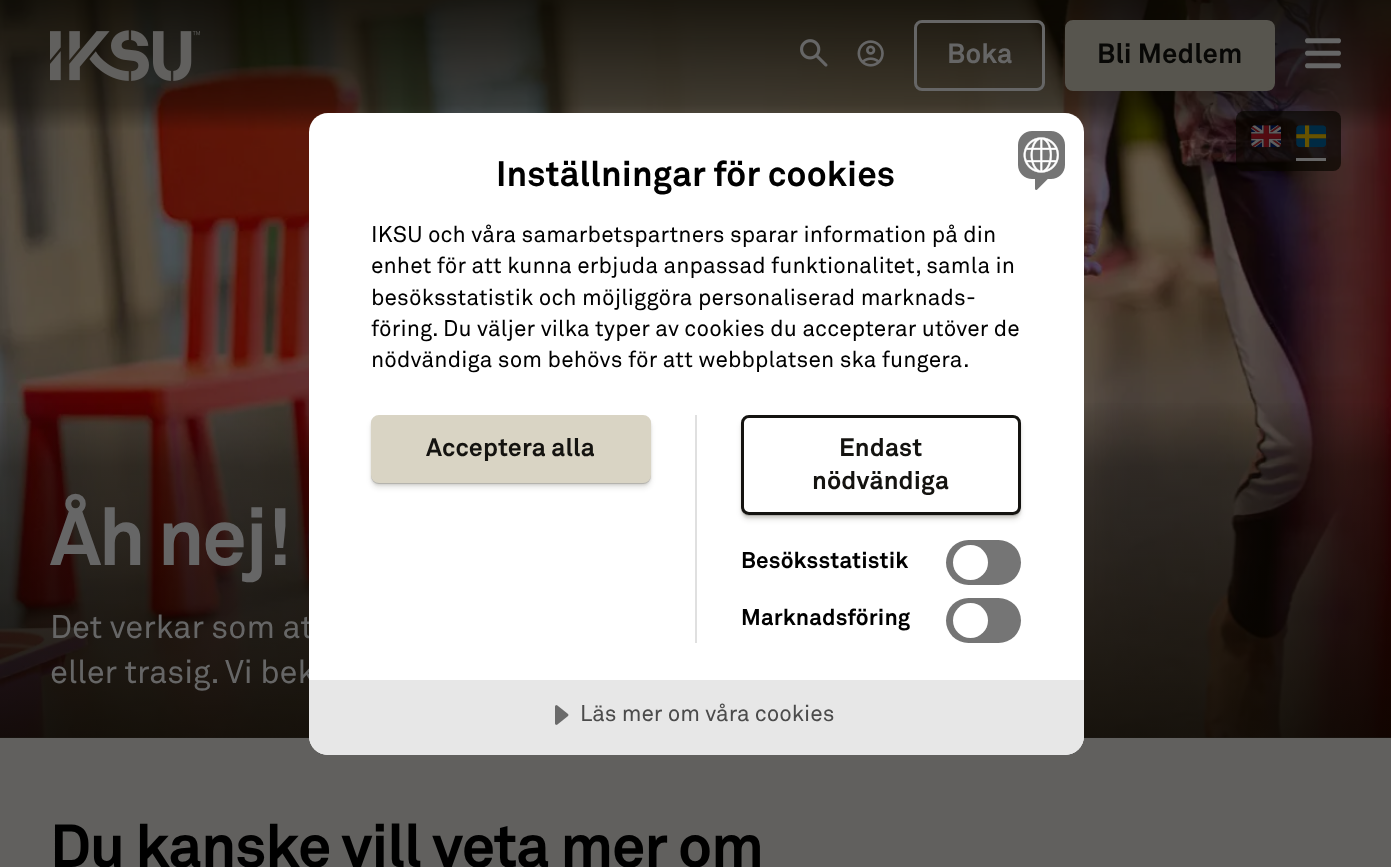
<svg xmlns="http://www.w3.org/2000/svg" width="1391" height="867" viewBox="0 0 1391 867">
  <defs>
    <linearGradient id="g1" gradientUnits="userSpaceOnUse" x1="696" y1="738" x2="696" y2="399"><stop offset="0" stop-color="rgb(9,6,0)" stop-opacity="0.8"/><stop offset="0.8" stop-color="rgb(9,6,0)" stop-opacity="0.4"/><stop offset="1" stop-color="rgb(9,6,0)" stop-opacity="0"/></linearGradient>
    <clipPath id="clip1"><path d="M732 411H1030V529H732ZM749 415H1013C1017.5 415 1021 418.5 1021 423V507C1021 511.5 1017.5 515 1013 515H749C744.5 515 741 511.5 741 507V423C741 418.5 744.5 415 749 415Z" clip-rule="evenodd"/></clipPath>
    <clipPath id="clip2"><path d="M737 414H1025V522H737ZM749 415H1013C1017.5 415 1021 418.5 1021 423V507C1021 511.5 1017.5 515 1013 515H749C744.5 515 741 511.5 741 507V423C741 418.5 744.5 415 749 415Z" clip-rule="evenodd"/></clipPath>
    <clipPath id="clip3"><path d="M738 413H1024V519H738ZM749 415H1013C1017.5 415 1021 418.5 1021 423V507C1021 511.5 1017.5 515 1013 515H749C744.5 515 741 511.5 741 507V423C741 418.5 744.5 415 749 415Z" clip-rule="evenodd"/></clipPath>
  </defs>
  <rect width="100%" height="100%" fill="rgb(97,96,94)"/>
  <image x="0" y="0" width="1391" height="738" href="pic9.png"/>
  <image x="50" y="30" width="150" height="51" href="pic1.png"/>
  <image x="800" y="39" width="28" height="28" href="pic2.png"/>
  <image x="857" y="40" width="27" height="27" href="pic3.png"/>
  <rect x="915.5" y="21.5" width="128" height="68" rx="6.5" fill="none" stroke="rgb(102,102,102)" stroke-width="3"/>
  <text x="947" y="63" font-family="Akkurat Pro" font-size="27.5" font-weight="bold" letter-spacing="0.15" fill="rgb(102,102,102)">Boka</text>
  <rect x="1066.5" y="21.5" width="207" height="68" rx="6.5" fill="rgb(87,85,78)" stroke="rgb(87,85,78)" stroke-width="3"/>
  <text x="1097" y="63" font-family="Akkurat Pro" font-size="27.5" font-weight="bold" letter-spacing="0.15" fill="rgb(8,8,6)">Bli Medlem</text>
  <image x="1305" y="38" width="36" height="31" href="pic4.png"/>
  <rect x="1236" y="111" width="105" height="60" rx="8" fill="rgba(9,6,0,0.7)"/>
  <image x="1251" y="125" width="30" height="23" href="pic5.png"/>
  <image x="1296" y="125" width="30" height="23" href="pic6.png"/>
  <rect x="1296" y="158" width="30" height="3" fill="rgb(102,102,102)"/>
  <rect x="0" y="403" width="1391" height="335" fill="url(#g1)"/>
  <g font-family="Akkurat Pro" font-size="32.5" fill="rgb(102,102,102)">
    <text>
      <tspan x="50" y="638">Det verkar som at</tspan>
      <tspan x="50" y="683">eller trasig. Vi bek</tspan>
    </text>
  </g>
  <rect x="309" y="113" width="775" height="642" rx="19" fill="rgb(255,255,255)"/>
  <text x="496" y="186" font-family="Akkurat Pro" font-size="35" font-weight="bold" letter-spacing="0.15" fill="rgb(0,0,0)">Inställningar för cookies</text>
  <g font-family="Akkurat Pro" font-size="22.5" letter-spacing="0.15" fill="rgb(0,0,0)">
    <text>
      <tspan x="371" y="242">IKSU och våra samarbetspartners sparar information på din</tspan>
      <tspan x="371" y="273">enhet för att kunna erbjuda anpassad funktionalitet, samla in</tspan>
      <tspan x="371" y="305">besöksstatistik och möjliggöra personaliserad marknads-</tspan>
      <tspan x="371" y="336">föring. Du väljer vilka typer av cookies du accepterar utöver de</tspan>
      <tspan x="371" y="367">nödvändiga som behövs för att webbplatsen ska fungera.</tspan>
    </text>
  </g>
  <rect x="695" y="415" width="2" height="228" fill="rgb(224,224,224)"/>
  <rect x="371" y="420" width="280" height="68" rx="8" fill="rgba(22,16,0,0.1)" filter="blur(2.5px)"/>
  <rect x="371" y="418" width="280" height="67" rx="8" fill="rgba(22,16,0,0.12)" filter="blur(1px)"/>
  <rect x="371" y="416" width="280" height="68" rx="8" fill="rgba(22,16,0,0.15)" filter="blur(0.5px)"/>
  <rect x="372.5" y="416.5" width="277" height="65" rx="6.5" fill="rgb(217,212,196)" stroke="rgb(217,212,196)" stroke-width="3"/>
  <text x="426" y="456" font-family="Akkurat Pro" font-size="25" font-weight="bold" letter-spacing="0.15" fill="rgb(20,19,16)">Acceptera alla</text>
  <g clip-path="url(#clip1)">
    <rect x="741" y="420" width="280" height="100" rx="8" fill="rgba(22,16,0,0.1)" filter="blur(2.5px)"/>
  </g>
  <g clip-path="url(#clip2)">
    <rect x="741" y="418" width="280" height="100" rx="8" fill="rgba(22,16,0,0.12)" filter="blur(1px)"/>
  </g>
  <g clip-path="url(#clip3)">
    <rect x="741" y="416" width="280" height="100" rx="8" fill="rgba(22,16,0,0.15)" filter="blur(0.5px)"/>
  </g>
  <rect x="742.5" y="416.5" width="277" height="97" rx="6.5" fill="none" stroke="rgb(20,19,16)" stroke-width="3"/>
  <g font-family="Akkurat Pro" font-size="25" font-weight="bold" letter-spacing="0.15" fill="rgb(20,19,16)">
    <text x="839" y="456">Endast</text>
    <text x="812" y="489">nödvändiga</text>
  </g>
  <text x="741" y="568" font-family="Akkurat Pro" font-size="22.5" font-weight="bold" letter-spacing="0.15" fill="rgb(0,0,0)">Besöksstatistik</text>
  <rect x="946" y="540" width="75" height="45" rx="22.5" fill="rgb(117,117,117)"/>
  <circle cx="970.5" cy="562.5" r="17.5" fill="rgb(255,255,255)"/>
  <text x="741" y="625" font-family="Akkurat Pro" font-size="22.5" font-weight="bold" letter-spacing="0.15" fill="rgb(0,0,0)">Marknadsföring</text>
  <rect x="946" y="598" width="75" height="45" rx="22.5" fill="rgb(117,117,117)"/>
  <circle cx="970.5" cy="620.5" r="17.5" fill="rgb(255,255,255)"/>
  <image x="1018" y="131" width="47" height="59" href="pic7.png"/>
  <path d="M309 680H1084V736C1084 746.5 1075.5 755 1065 755H328C317.5 755 309 746.5 309 736Z" fill="rgb(231,231,231)"/>
  <image x="555" y="705" width="14" height="20" href="pic8.png"/>
  <text x="580" y="721" font-family="Akkurat Pro" font-size="22.5" fill="rgb(75,75,75)">Läs mer om våra cookies</text>
  <text x="50" y="565" font-family="Akkurat Pro" font-size="80" font-weight="bold" letter-spacing="-2.5" fill="rgb(102,102,102)">Åh nej!</text>
  <text x="50" y="867" font-family="Akkurat Pro" font-size="60" font-weight="bold" letter-spacing="-1.2" fill="rgb(0,0,0)">Du kanske vill veta mer om</text>
</svg>
